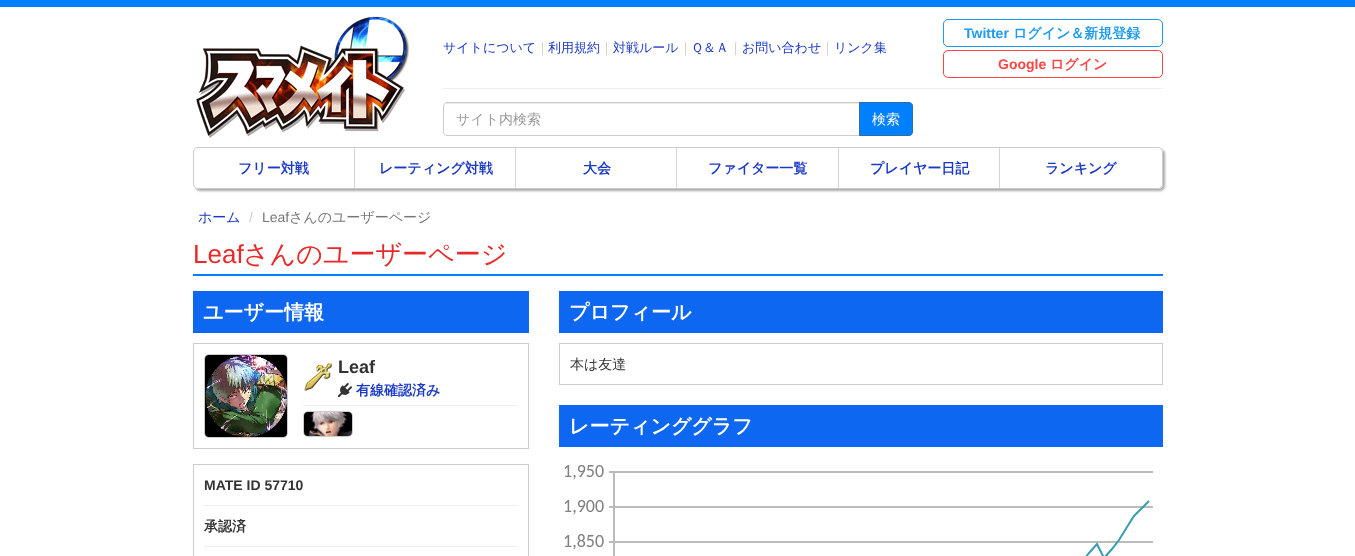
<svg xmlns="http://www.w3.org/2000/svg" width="1355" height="556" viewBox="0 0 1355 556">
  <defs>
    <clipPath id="clip1"><path d="M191 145H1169V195H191ZM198 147H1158C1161 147 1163 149 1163 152V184C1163 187 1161 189 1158 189H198C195 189 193 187 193 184V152C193 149 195 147 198 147Z" clip-rule="evenodd"/></clipPath>
  </defs>
  <rect width="100%" height="100%" fill="rgb(255,255,255)"/>
  <rect x="0" y="0" width="1355" height="7" fill="rgb(0,127,255)"/>
  <image x="196" y="16" width="214" height="122" href="pic1.png"/>
  <text x="443" y="52" font-family="WenQuanYi Zen Hei" font-size="13" font-weight="500" fill="rgb(26,57,197)">サイトについて</text>
  <text x="536" y="52" font-family="WenQuanYi Zen Hei" font-size="13" font-weight="500" fill="rgb(207,201,183)">｜</text>
  <text x="548" y="52" font-family="WenQuanYi Zen Hei" font-size="13" font-weight="500" fill="rgb(26,57,197)">利用規約</text>
  <text x="600" y="52" font-family="WenQuanYi Zen Hei" font-size="13" font-weight="500" fill="rgb(207,201,183)">｜</text>
  <text x="613" y="52" font-family="WenQuanYi Zen Hei" font-size="13" font-weight="500" fill="rgb(26,57,197)">対戦ルール</text>
  <text x="679" y="52" font-family="WenQuanYi Zen Hei" font-size="13" font-weight="500" fill="rgb(207,201,183)">｜</text>
  <text x="691" y="52" font-family="WenQuanYi Zen Hei" font-size="13" font-weight="500" fill="rgb(26,57,197)">Ｑ＆Ａ</text>
  <text x="729" y="52" font-family="WenQuanYi Zen Hei" font-size="13" font-weight="500" fill="rgb(207,201,183)">｜</text>
  <text x="742" y="52" font-family="WenQuanYi Zen Hei" font-size="13" font-weight="500" fill="rgb(26,57,197)">お問い合わせ</text>
  <text x="821" y="52" font-family="WenQuanYi Zen Hei" font-size="13" font-weight="500" fill="rgb(207,201,183)">｜</text>
  <text x="834" y="52" font-family="WenQuanYi Zen Hei" font-size="13" font-weight="500" fill="rgb(26,57,197)">リンク集</text>
  <rect x="943.5" y="19.5" width="219" height="27" rx="4.5" fill="none" stroke="rgb(29,155,240)"/>
  <text x="964" y="38" font-family="Liberation Sans" font-size="14" font-weight="bold" fill="rgb(29,155,240)">Twitter</text>
  <text x="1013" y="38" font-family="WenQuanYi Zen Hei" font-size="14" font-weight="bold" fill="rgb(29,155,240)">ログイン＆新規登録</text>
  <rect x="943.5" y="50.5" width="219" height="27" rx="4.5" fill="none" stroke="rgb(254,68,68)"/>
  <text x="998" y="69" font-family="Liberation Sans" font-size="14" font-weight="bold" fill="rgb(254,68,68)">Google</text>
  <text x="1050" y="69" font-family="WenQuanYi Zen Hei" font-size="14" font-weight="bold" fill="rgb(254,68,68)">ログイン</text>
  <rect x="443" y="88" width="720" height="1" fill="rgb(238,238,238)"/>
  <path d="M447 104H859V103H447C445 103 444 105 444 107C444 105 445 104 447 104Z" fill="rgb(236,236,236)"/>
  <path d="M447 102.5H859.5V135.5H447C445 135.5 443.5 134 443.5 132V106C443.5 104 445 102.5 447 102.5Z" fill="none" stroke="rgb(204,204,204)"/>
  <text x="456" y="124" font-family="WenQuanYi Zen Hei" font-size="14" font-weight="500" fill="rgb(153,153,153)">サイト内検索</text>
  <path d="M859.5 102.5H909C911 102.5 912.5 104 912.5 106V132C912.5 134 911 135.5 909 135.5H859.5Z" fill="rgb(0,127,255)" stroke="rgb(46,109,164)"/>
  <text x="872" y="124" font-family="WenQuanYi Zen Hei" font-size="14" font-weight="500" fill="rgb(255,255,255)">検索</text>
  <g clip-path="url(#clip1)">
    <rect x="195" y="149" width="970" height="42" rx="5" fill="rgb(170,170,170)" filter="blur(1px)"/>
  </g>
  <rect x="193.5" y="147.5" width="969" height="41" rx="4.5" fill="none" stroke="rgb(204,204,204)"/>
  <rect x="354" y="148" width="1" height="40" fill="rgb(213,213,213)"/>
  <text x="238" y="173" font-family="WenQuanYi Zen Hei" font-size="14" font-weight="bold" fill="rgb(26,57,197)">フリー対戦</text>
  <rect x="515" y="148" width="1" height="40" fill="rgb(213,213,213)"/>
  <text x="379" y="173" font-family="WenQuanYi Zen Hei" font-size="14" font-weight="bold" fill="rgb(26,57,197)">レーティング対戦</text>
  <rect x="676" y="148" width="1" height="40" fill="rgb(213,213,213)"/>
  <text x="583" y="173" font-family="WenQuanYi Zen Hei" font-size="14" font-weight="bold" fill="rgb(26,57,197)">大会</text>
  <rect x="838" y="148" width="1" height="40" fill="rgb(213,213,213)"/>
  <text x="708" y="173" font-family="WenQuanYi Zen Hei" font-size="14" font-weight="bold" fill="rgb(26,57,197)">ファイター一覧</text>
  <rect x="999" y="148" width="1" height="40" fill="rgb(213,213,213)"/>
  <g font-family="WenQuanYi Zen Hei" font-size="14" font-weight="bold" fill="rgb(26,57,197)">
    <text x="870" y="173">プレイヤー日記</text>
    <text x="1045" y="173">ランキング</text>
  </g>
  <text x="198" y="222" font-family="WenQuanYi Zen Hei" font-size="14" font-weight="500" fill="rgb(26,57,197)">ホーム</text>
  <text x="249" y="222" font-family="Liberation Sans" font-size="14" fill="rgb(204,204,204)">/</text>
  <text x="262" y="222" font-family="Liberation Sans" font-size="14" fill="rgb(119,119,119)">Leaf</text>
  <text x="289" y="222" font-family="WenQuanYi Zen Hei" font-size="14" font-weight="500" fill="rgb(119,119,119)">さんのユーザーページ</text>
  <rect x="193" y="274" width="970" height="2" fill="rgb(0,127,255)"/>
  <text x="193" y="263" font-family="Liberation Sans" font-size="26" fill="rgb(232,41,41)">Leaf</text>
  <text x="243" y="263" font-family="WenQuanYi Zen Hei" font-size="26" font-weight="500" fill="rgb(232,41,41)">さんのユーザーページ</text>
  <rect x="193" y="291" width="336" height="42" fill="rgb(15,105,245)"/>
  <image x="193" y="291" width="336" height="42" href="pic2.png"/>
  <text x="203" y="319" font-family="WenQuanYi Zen Hei" font-size="20" font-weight="bold" fill="rgb(255,255,255)">ユーザー情報</text>
  <rect x="193.5" y="343.5" width="335" height="105" fill="none" stroke="rgb(204,204,204)"/>
  <rect x="204.5" y="354.5" width="83" height="83" rx="4.5" fill="none" stroke="rgb(204,204,204)"/>
  <image x="205" y="355" width="82" height="82" href="pic3.png"/>
  <image x="304" y="363" width="28" height="28" href="pic4.png"/>
  <text x="338" y="373" font-family="Liberation Sans" font-size="18" font-weight="bold" fill="rgb(51,51,51)">Leaf</text>
  <image x="338" y="383" width="14" height="14" href="pic5.png"/>
  <text x="356" y="395" font-family="WenQuanYi Zen Hei" font-size="14" font-weight="bold" fill="rgb(26,57,197)">有線確認済み</text>
  <rect x="303" y="405" width="214" height="1" fill="rgb(238,238,238)"/>
  <rect x="303.5" y="411.5" width="49" height="25" rx="4.5" fill="none" stroke="rgb(204,204,204)"/>
  <image x="304" y="412" width="48" height="24" href="pic6.png"/>
  <rect x="193.5" y="464.5" width="335" height="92" fill="none" stroke="rgb(204,204,204)"/>
  <text x="204" y="490" font-family="Liberation Sans" font-size="14" font-weight="bold" fill="rgb(51,51,51)">MATE ID 57710</text>
  <rect x="204" y="505" width="314" height="1" fill="rgb(238,238,238)"/>
  <text x="204" y="531" font-family="WenQuanYi Zen Hei" font-size="14" font-weight="bold" fill="rgb(51,51,51)">承認済</text>
  <rect x="204" y="546" width="314" height="1" fill="rgb(238,238,238)"/>
  <rect x="559" y="291" width="604" height="42" fill="rgb(15,105,245)"/>
  <image x="559" y="291" width="604" height="42" href="pic7.png"/>
  <text x="569" y="319" font-family="WenQuanYi Zen Hei" font-size="20" font-weight="bold" fill="rgb(255,255,255)">プロフィール</text>
  <rect x="559.5" y="343.5" width="603" height="41" fill="none" stroke="rgb(204,204,204)"/>
  <text x="570" y="369" font-family="WenQuanYi Zen Hei" font-size="14" font-weight="500" fill="rgb(51,51,51)">本は友達</text>
  <rect x="559" y="405" width="604" height="42" fill="rgb(15,105,245)"/>
  <image x="559" y="405" width="604" height="42" href="pic7.png"/>
  <text x="569" y="433" font-family="WenQuanYi Zen Hei" font-size="20" font-weight="bold" fill="rgb(255,255,255)">レーティンググラフ</text>
  <image x="564" y="465" width="589" height="91" href="pic8.png"/>
</svg>
